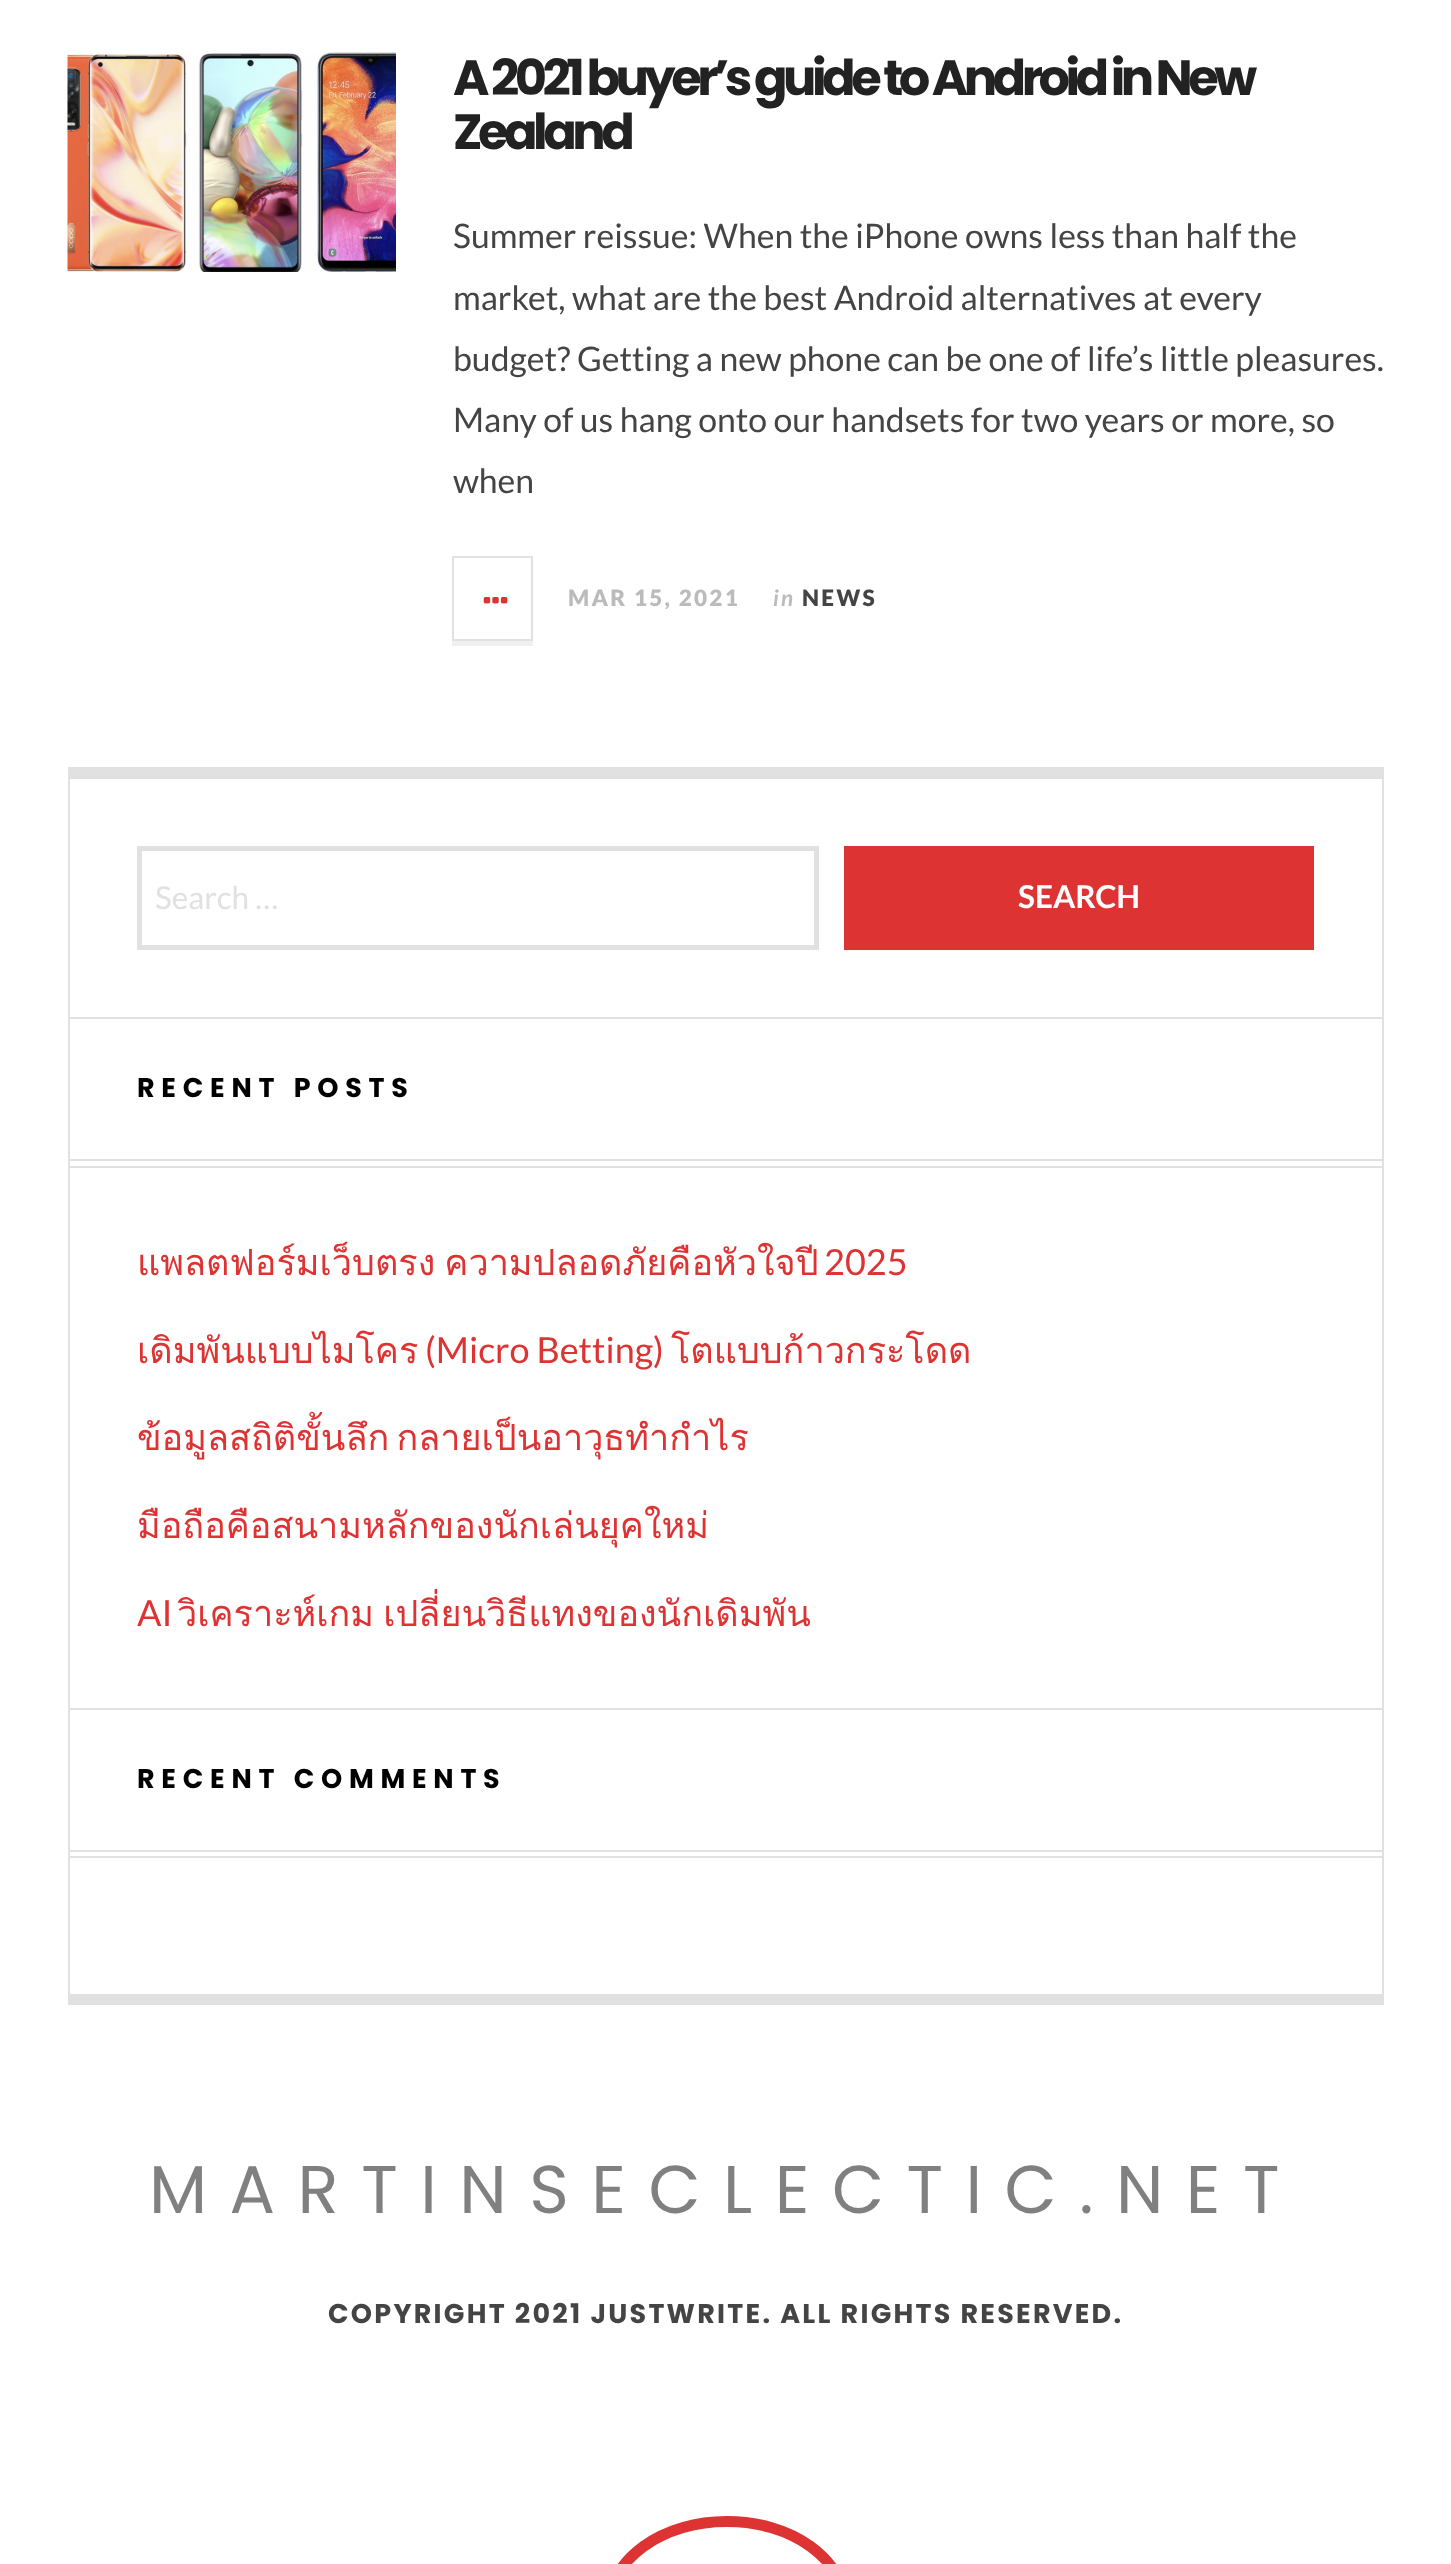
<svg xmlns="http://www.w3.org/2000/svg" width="1451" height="2564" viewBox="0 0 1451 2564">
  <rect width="100%" height="100%" fill="rgb(255,255,255)"/>
  <rect x="68" y="1994" width="1316" height="11" fill="rgb(225,225,225)"/>
  <image x="67" y="52" width="329" height="220" href="pic1.png"/>
  <g font-family="Poppins" font-size="49.5" font-weight="bold" letter-spacing="-4.5" fill="rgb(34,34,34)">
    <text>
      <tspan x="453" y="95">A 2021 buyer’s guide to Android in New</tspan>
      <tspan x="453" y="149">Zealand</tspan>
    </text>
  </g>
  <g font-family="Lato" font-size="33.75" fill="rgb(68,68,68)">
    <text>
      <tspan x="453" y="248">Summer reissue: When the iPhone owns less than half the</tspan>
      <tspan x="453" y="310">market, what are the best Android alternatives at every</tspan>
      <tspan x="453" y="371">budget? Getting a new phone can be one of life’s little pleasures.</tspan>
      <tspan x="453" y="432">Many of us hang onto our handsets for two years or more, so</tspan>
      <tspan x="453" y="493">when</tspan>
    </text>
  </g>
  <path d="M452 560V646H533V641H452Z" fill="rgb(240,240,240)"/>
  <rect x="453" y="557" width="79" height="83" fill="none" stroke="rgb(225,225,225)" stroke-width="2"/>
  <image x="483" y="597" width="25" height="7" href="pic2.png"/>
  <text x="568" y="606" font-family="Lato" font-size="22.5" font-weight="900" letter-spacing="2.25" fill="rgb(187,187,187)">MAR 15, 2021</text>
  <text x="773" y="606" font-family="Lato" font-size="22.5" font-weight="bold" font-style="italic" letter-spacing="2.25" fill="rgb(187,187,187)">in</text>
  <text x="802" y="606" font-family="Lato" font-size="22.5" font-weight="900" letter-spacing="2.25" fill="rgb(68,68,68)">NEWS</text>
  <rect x="70" y="767" width="1312" height="12" fill="rgb(225,225,225)"/>
  <rect x="1382" y="767" width="2" height="1227" fill="rgb(225,225,225)"/>
  <rect x="68" y="767" width="2" height="1227" fill="rgb(225,225,225)"/>
  <rect x="139.5" y="848.5" width="677" height="99" fill="none" stroke="rgb(225,225,225)" stroke-width="5"/>
  <text x="155" y="909" font-family="Lato" font-size="31.5" fill="rgb(225,225,225)">Search …</text>
  <rect x="844" y="846" width="470" height="104" fill="rgb(221,51,51)"/>
  <text x="1018" y="908" font-family="Lato" font-size="31.5" font-weight="bold" fill="rgb(255,255,255)">SEARCH</text>
  <rect x="70" y="1017" width="1312" height="2" fill="rgb(225,225,225)"/>
  <rect x="70" y="1159" width="1312" height="2" fill="rgb(225,225,225)"/>
  <rect x="70" y="1166" width="1312" height="2" fill="rgb(225,225,225)"/>
  <text x="137" y="1097" font-family="Poppins" font-size="27" font-weight="bold" letter-spacing="6.75" fill="rgb(0,0,0)">RECENT POSTS</text>
  <text x="137" y="1275" word-spacing="-3" font-family="Loma" font-size="36" fill="rgb(221,51,51)">แพลตฟอร์มเว็บตรง ความปลอดภัยคือหัวใจปี</text>
  <text x="824" y="1275" font-family="Lato" font-size="36" fill="rgb(221,51,51)">2025</text>
  <text x="137" y="1363" font-family="Loma" font-size="36" fill="rgb(221,51,51)">เดิมพันแบบไมโคร</text>
  <text x="425" y="1363" font-family="Lato" font-size="36" fill="rgb(221,51,51)">(Micro Betting)</text>
  <g font-family="Loma" font-size="36" fill="rgb(221,51,51)">
    <text x="671" y="1363">โตแบบก้าวกระโดด</text>
    <text x="137" y="1450" word-spacing="-5">ข้อมูลสถิติขั้นลึก กลายเป็นอาวุธทำกำไร</text>
    <text x="137" y="1538">มือถือคือสนามหลักของนักเล่นยุคใหม่</text>
  </g>
  <text x="137" y="1626" font-family="Lato" font-size="36" fill="rgb(221,51,51)">AI</text>
  <text x="177" y="1626" word-spacing="-3" font-family="Loma" font-size="36" fill="rgb(221,51,51)">วิเคราะห์เกม เปลี่ยนวิธีแทงของนักเดิมพัน</text>
  <rect x="70" y="1708" width="1312" height="2" fill="rgb(225,225,225)"/>
  <rect x="70" y="1850" width="1312" height="2" fill="rgb(225,225,225)"/>
  <rect x="70" y="1856" width="1312" height="2" fill="rgb(225,225,225)"/>
  <text x="137" y="1788" font-family="Poppins" font-size="27" font-weight="bold" letter-spacing="6.75" fill="rgb(0,0,0)">RECENT COMMENTS</text>
  <text x="149" y="2213" font-family="Poppins" font-size="67.5" letter-spacing="22.5" fill="rgb(128,128,128)">MARTINSECLECTIC.NET</text>
  <text x="328" y="2323" font-family="Poppins" font-size="27" font-weight="bold" letter-spacing="2.25" fill="rgb(68,68,68)">COPYRIGHT 2021 JUSTWRITE. ALL RIGHTS RESERVED.</text>
  <rect x="608.5" y="2521.5" width="237" height="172" rx="118" fill="none" stroke="rgb(221,51,51)" stroke-width="11"/>
</svg>
